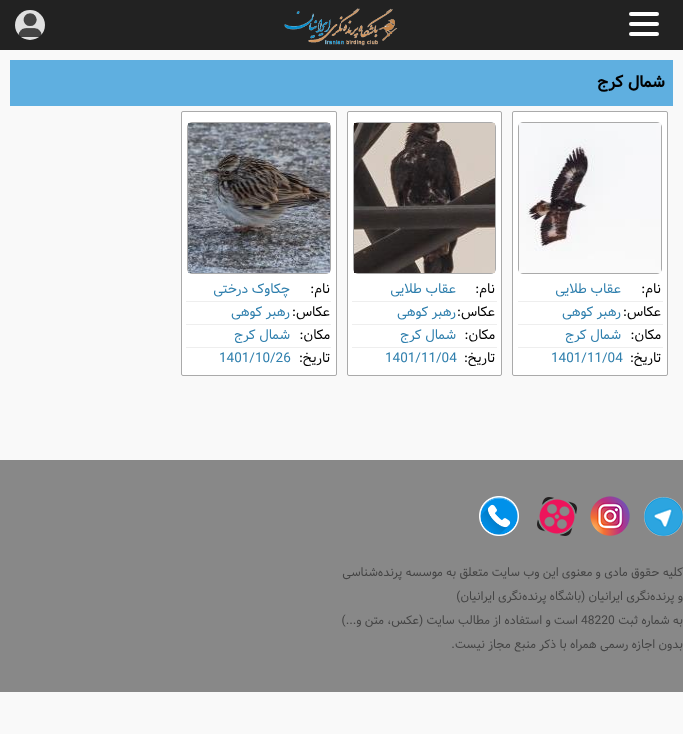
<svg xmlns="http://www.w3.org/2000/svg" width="683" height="734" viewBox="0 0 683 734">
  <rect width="100%" height="100%" fill="rgb(249,249,249)"/>
  <rect x="0" y="0" width="683" height="50" fill="rgb(34,34,34)"/>
  <image x="284" y="8" width="114" height="38" href="pic1.png"/>
  <rect x="629" y="22" width="30" height="4" rx="2" fill="rgb(255,255,255)"/>
  <rect x="629" y="12" width="30" height="4" rx="2" fill="rgb(255,255,255)"/>
  <rect x="629" y="32" width="30" height="4" rx="2" fill="rgb(255,255,255)"/>
  <image x="15" y="10" width="30" height="30" href="pic2.png"/>
  <rect x="10" y="60" width="663" height="46" fill="rgb(95,175,224)"/>
  <text x="665" y="87" font-family="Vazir" font-size="16" font-weight="bold" direction="rtl" fill="rgb(0,0,0)">شمال کرج</text>
  <rect x="512.5" y="111.5" width="155" height="264" rx="1.5" fill="rgb(255,255,255)" stroke="rgb(170,170,170)"/>
  <rect x="518.5" y="122.5" width="143" height="151" rx="4.5" fill="none" stroke="rgb(170,170,170)"/>
  <image x="519" y="123" width="142" height="150" href="pic3.png"/>
  <rect x="518" y="301" width="145" height="1" fill="rgb(238,238,238)"/>
  <text x="661" y="293" font-family="Vazir" font-size="13.5" direction="rtl" fill="rgb(0,0,0)">نام:</text>
  <text x="621" y="293" font-family="Vazir" font-size="13.5" direction="rtl" fill="rgb(47,127,173)">عقاب طلایی</text>
  <rect x="518" y="324" width="145" height="1" fill="rgb(238,238,238)"/>
  <text x="661" y="316" font-family="Vazir" font-size="13.5" direction="rtl" fill="rgb(0,0,0)">عکاس:</text>
  <text x="621" y="316" font-family="Vazir" font-size="13.5" direction="rtl" fill="rgb(47,127,173)">رهبر کوهی</text>
  <rect x="518" y="347" width="145" height="1" fill="rgb(238,238,238)"/>
  <text x="661" y="339" font-family="Vazir" font-size="13.5" direction="rtl" fill="rgb(0,0,0)">مکان:</text>
  <text x="621" y="339" font-family="Vazir" font-size="13.5" direction="rtl" fill="rgb(47,127,173)">شمال کرج</text>
  <text x="661" y="362" font-family="Vazir" font-size="13.5" direction="rtl" fill="rgb(0,0,0)">تاریخ:</text>
  <text x="551" y="362" font-family="Vazir" font-size="13.5" fill="rgb(47,127,173)">1401/11/04</text>
  <rect x="347.5" y="111.5" width="154" height="264" rx="1.5" fill="rgb(255,255,255)" stroke="rgb(170,170,170)"/>
  <rect x="353.5" y="122.5" width="142" height="151" rx="4.5" fill="none" stroke="rgb(170,170,170)"/>
  <image x="354" y="123" width="141" height="150" href="pic4.png"/>
  <rect x="352" y="301" width="145" height="1" fill="rgb(238,238,238)"/>
  <text x="495" y="293" font-family="Vazir" font-size="13.5" direction="rtl" fill="rgb(0,0,0)">نام:</text>
  <text x="456" y="293" font-family="Vazir" font-size="13.5" direction="rtl" fill="rgb(47,127,173)">عقاب طلایی</text>
  <rect x="352" y="324" width="145" height="1" fill="rgb(238,238,238)"/>
  <text x="495" y="316" font-family="Vazir" font-size="13.5" direction="rtl" fill="rgb(0,0,0)">عکاس:</text>
  <text x="456" y="316" font-family="Vazir" font-size="13.5" direction="rtl" fill="rgb(47,127,173)">رهبر کوهی</text>
  <rect x="352" y="347" width="145" height="1" fill="rgb(238,238,238)"/>
  <text x="495" y="339" font-family="Vazir" font-size="13.5" direction="rtl" fill="rgb(0,0,0)">مکان:</text>
  <text x="456" y="339" font-family="Vazir" font-size="13.5" direction="rtl" fill="rgb(47,127,173)">شمال کرج</text>
  <text x="495" y="362" font-family="Vazir" font-size="13.5" direction="rtl" fill="rgb(0,0,0)">تاریخ:</text>
  <text x="385" y="362" font-family="Vazir" font-size="13.5" fill="rgb(47,127,173)">1401/11/04</text>
  <rect x="181.5" y="111.5" width="155" height="264" rx="1.5" fill="rgb(255,255,255)" stroke="rgb(170,170,170)"/>
  <rect x="187.5" y="122.5" width="143" height="151" rx="4.5" fill="none" stroke="rgb(170,170,170)"/>
  <image x="188" y="123" width="142" height="150" href="pic5.png"/>
  <rect x="186" y="301" width="145" height="1" fill="rgb(238,238,238)"/>
  <text x="330" y="293" font-family="Vazir" font-size="13.5" direction="rtl" fill="rgb(0,0,0)">نام:</text>
  <text x="290" y="293" font-family="Vazir" font-size="13.5" direction="rtl" fill="rgb(47,127,173)">چکاوک درختی</text>
  <rect x="186" y="324" width="145" height="1" fill="rgb(238,238,238)"/>
  <text x="330" y="316" font-family="Vazir" font-size="13.5" direction="rtl" fill="rgb(0,0,0)">عکاس:</text>
  <text x="290" y="316" font-family="Vazir" font-size="13.5" direction="rtl" fill="rgb(47,127,173)">رهبر کوهی</text>
  <rect x="186" y="347" width="145" height="1" fill="rgb(238,238,238)"/>
  <text x="330" y="339" font-family="Vazir" font-size="13.5" direction="rtl" fill="rgb(0,0,0)">مکان:</text>
  <text x="290" y="339" font-family="Vazir" font-size="13.5" direction="rtl" fill="rgb(47,127,173)">شمال کرج</text>
  <text x="330" y="362" font-family="Vazir" font-size="13.5" direction="rtl" fill="rgb(0,0,0)">تاریخ:</text>
  <text x="219" y="362" font-family="Vazir" font-size="13.5" fill="rgb(47,127,173)">1401/10/26</text>
  <rect x="0" y="460" width="683" height="232" fill="rgb(136,136,136)"/>
  <image x="644" y="497" width="39" height="39" href="pic6.png"/>
  <image x="590" y="496" width="40" height="40" href="pic7.png"/>
  <image x="537" y="497" width="40" height="39" href="pic8.png"/>
  <image x="479" y="496" width="40" height="40" href="pic9.png"/>
  <g font-family="Vazir" font-size="12" direction="rtl" fill="rgb(68,68,68)">
    <text x="683" y="576">کلیه حقوق مادی و معنوی این وب سایت متعلق به موسسه پرنده‌شناسی</text>
    <text x="683" y="600">و پرنده‌نگری ایرانیان (باشگاه پرنده‌نگری ایرانیان)</text>
    <text x="683" y="624">به شماره ثبت</text>
  </g>
  <text x="581" y="624" font-family="Vazir" font-size="12" fill="rgb(68,68,68)">48220</text>
  <g font-family="Vazir" font-size="12" direction="rtl" fill="rgb(68,68,68)">
    <text x="578" y="624">است و استفاده از مطالب سایت (عکس، متن و...)</text>
    <text x="683" y="648">بدون اجازه رسمی همراه با ذکر منبع مجاز نیست.</text>
  </g>
</svg>
